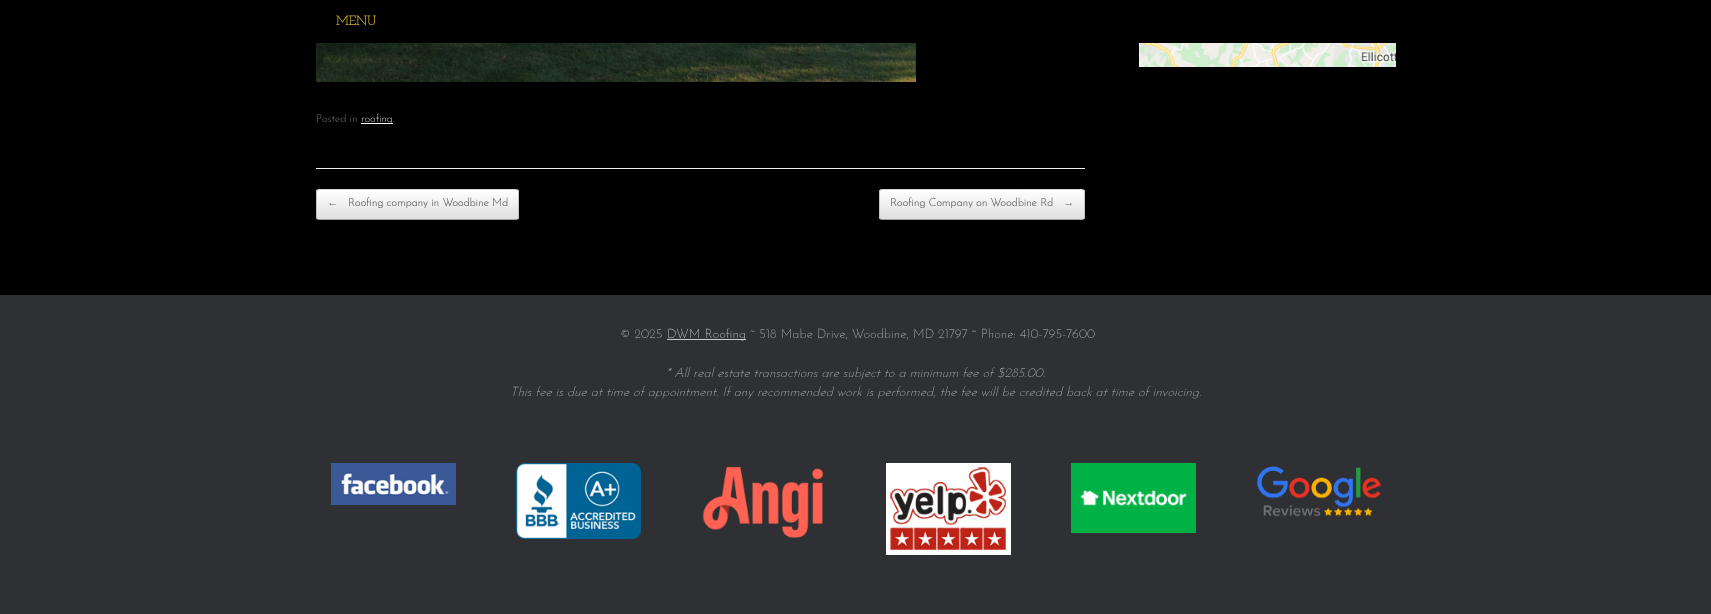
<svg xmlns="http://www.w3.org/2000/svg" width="1711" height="614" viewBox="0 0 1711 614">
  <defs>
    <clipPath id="clip1"><rect x="316" y="189" width="203" height="31" rx="3"/></clipPath>
    <linearGradient id="g1" gradientUnits="userSpaceOnUse" x1="317" y1="219" x2="317" y2="190"><stop offset="0" stop-color="rgb(223,223,223)"/><stop offset="1" stop-color="rgb(255,255,255)"/></linearGradient>
    <clipPath id="clip2"><rect x="879" y="189" width="206" height="31" rx="3"/></clipPath>
    <linearGradient id="g2" gradientUnits="userSpaceOnUse" x1="880" y1="219" x2="880" y2="190"><stop offset="0" stop-color="rgb(223,223,223)"/><stop offset="1" stop-color="rgb(255,255,255)"/></linearGradient>
  </defs>
  <rect width="100%" height="100%" fill="rgb(47,48,51)"/>
  <rect x="0" y="0" width="1711" height="295" fill="rgb(0,0,0)"/>
  <text x="336" y="25" font-family="Josefin Slab" font-size="13" font-weight="bold" fill="rgb(205,174,47)">MENU</text>
  <image x="1139" y="43" width="257" height="24" href="pic1.png"/>
  <rect x="316" y="168" width="769" height="1" fill="rgb(238,238,238)"/>
  <image x="316" y="43" width="600" height="39" href="pic2.png"/>
  <text x="316" y="122" font-family="Josefin Sans" font-size="11" font-weight="100" fill="rgb(153,153,153)">Posted in</text>
  <rect x="361" y="123" width="32" height="1" fill="rgb(255,255,255)"/>
  <text x="361" y="122" font-family="Josefin Sans" font-size="11" font-weight="100" fill="rgb(255,255,255)">roofing</text>
  <text x="393" y="122" font-family="Josefin Sans" font-size="11" font-weight="100" fill="rgb(153,153,153)">.</text>
  <g clip-path="url(#clip1)">
    <rect x="316" y="190" width="203" height="29" fill="url(#g1)"/>
  </g>
  <path d="M317 190L319 189.5H516L518 190" fill="none" stroke="rgb(210,210,210)"/>
  <path d="M518 190C518 190.5 518.5 191.5 518.5 192V217C518.5 217.5 518 218.5 518 219" fill="none" stroke="rgb(195,195,195)"/>
  <path d="M518 219L516 219.5H319L317 219" fill="none" stroke="rgb(159,159,159)"/>
  <path d="M317 219C317 218.5 316.5 217.5 316.5 217V192C316.5 191.5 317 190.5 317 190" fill="none" stroke="rgb(195,195,195)"/>
  <text x="327" y="206" font-family="Liberation Serif" font-size="11" font-weight="bold" fill="rgb(100,100,100)">←</text>
  <text x="348" y="206" font-family="Josefin Sans" font-size="11" font-weight="bold" fill="rgb(100,100,100)">Roofing company in Woodbine Md</text>
  <g clip-path="url(#clip2)">
    <rect x="879" y="190" width="206" height="29" fill="url(#g2)"/>
  </g>
  <path d="M880 190L882 189.5H1082L1084 190" fill="none" stroke="rgb(210,210,210)"/>
  <path d="M1084 190C1084 190.5 1084.5 191.5 1084.5 192V217C1084.5 217.5 1084 218.5 1084 219" fill="none" stroke="rgb(195,195,195)"/>
  <path d="M1084 219L1082 219.5H882L880 219" fill="none" stroke="rgb(159,159,159)"/>
  <path d="M880 219C880 218.5 879.5 217.5 879.5 217V192C879.5 191.5 880 190.5 880 190" fill="none" stroke="rgb(195,195,195)"/>
  <text x="890" y="206" font-family="Josefin Sans" font-size="11" font-weight="bold" fill="rgb(100,100,100)">Roofing Company on Woodbine Rd</text>
  <text x="1063" y="206" font-family="Liberation Serif" font-size="11" font-weight="bold" fill="rgb(100,100,100)">→</text>
  <text x="620" y="338" font-family="Josefin Sans" font-size="13" font-weight="100" fill="rgb(185,185,185)">© 2025</text>
  <rect x="667" y="339" width="79" height="1" fill="rgb(204,204,204)"/>
  <text x="667" y="338" font-family="Josefin Sans" font-size="13" font-weight="100" fill="rgb(204,204,204)">DWM Roofing</text>
  <text x="750" y="338" font-family="Josefin Sans" font-size="13" font-weight="100" fill="rgb(185,185,185)">~ 518 Mabe Drive, Woodbine, MD 21797 ~ Phone: 410-795-7600</text>
  <g font-family="Josefin Sans" font-size="13" font-weight="100" font-style="italic" fill="rgb(185,185,185)">
    <text x="666" y="377">* All real estate transactions are subject to a minimum fee of $285.00.</text>
    <text x="510" y="396">This fee is due at time of appointment. If any recommended work is performed, the fee will be credited back at time of invoicing.</text>
  </g>
  <image x="331" y="463" width="125" height="42" href="pic3.png"/>
  <image x="516" y="463" width="125" height="76" href="pic4.png"/>
  <image x="702" y="466" width="122" height="72" href="pic5.png"/>
  <image x="886" y="463" width="125" height="92" href="pic6.png"/>
  <image x="1071" y="463" width="125" height="70" href="pic7.png"/>
  <image x="1256" y="466" width="125" height="51" href="pic8.png"/>
</svg>
